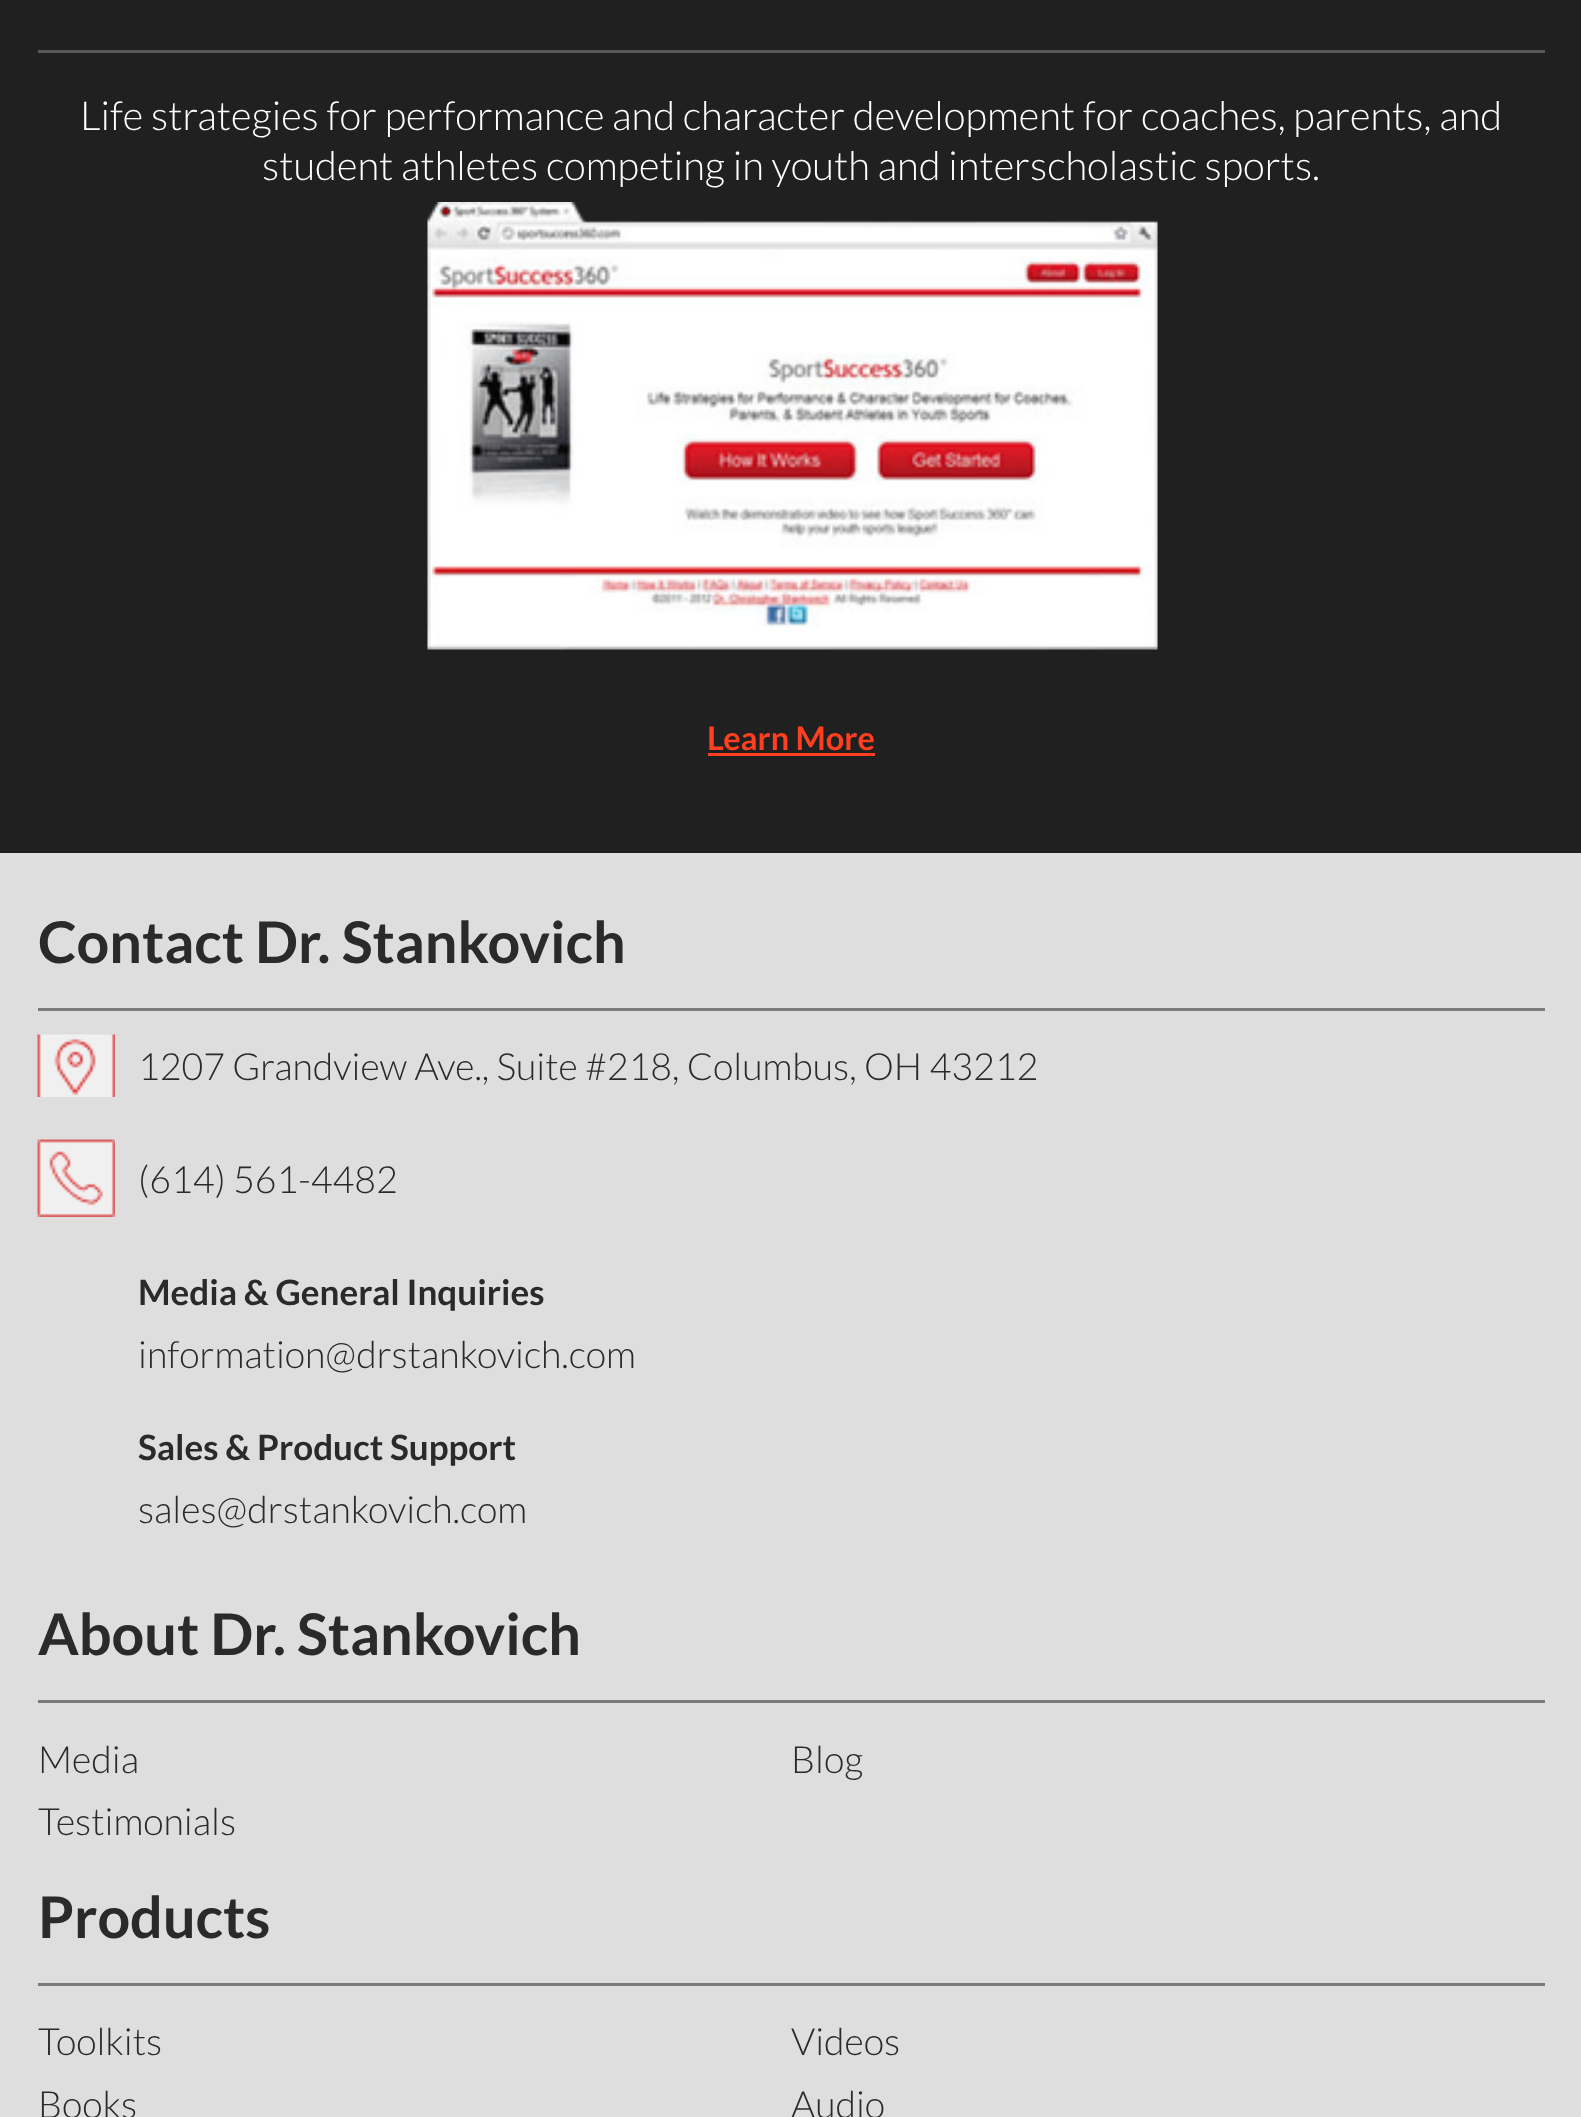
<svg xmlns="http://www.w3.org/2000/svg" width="1581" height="2117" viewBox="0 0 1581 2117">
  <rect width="100%" height="100%" fill="rgb(32,32,32)"/>
  <rect x="38" y="50" width="1507" height="3" fill="rgb(88,88,88)"/>
  <g font-family="Lato" font-size="40" font-weight="300" fill="rgb(255,255,255)">
    <text x="80" y="130">Life strategies for performance and character development for coaches, parents, and</text>
    <text x="262" y="180">student athletes competing in youth and interscholastic sports.</text>
  </g>
  <image x="427" y="202" width="731" height="448" href="pic1.png"/>
  <text x="707" y="750" font-family="Lato" font-size="32.5" font-weight="bold" fill="rgb(254,64,32)">Learn More</text>
  <rect x="708" y="753" width="167" height="3" fill="rgb(254,64,32)"/>
  <rect x="0" y="853" width="1581" height="1264" fill="rgb(223,222,222)"/>
  <rect x="38" y="1008" width="1507" height="3" fill="rgb(124,123,123)"/>
  <text x="38" y="963" font-family="Lato" font-size="57.5" font-weight="bold" fill="rgb(42,42,42)">Contact Dr. Stankovich</text>
  <image x="37" y="1034" width="78" height="63" href="pic2.png"/>
  <text x="138" y="1080" font-family="Lato" font-size="37.5" font-weight="300" fill="rgb(42,42,42)">1207 Grandview Ave., Suite #218, Columbus, OH 43212</text>
  <image x="37" y="1139" width="78" height="78" href="pic3.png"/>
  <text x="138" y="1193" font-family="Lato" font-size="37.5" font-weight="300" fill="rgb(42,42,42)">(614) 561-4482</text>
  <text x="138" y="1305" font-family="Lato" font-size="35" font-weight="bold" fill="rgb(42,42,42)">Media &amp; General Inquiries</text>
  <text x="138" y="1368" font-family="Lato" font-size="37.5" font-weight="300" fill="rgb(42,42,42)">information@drstankovich.com</text>
  <text x="138" y="1460" font-family="Lato" font-size="35" font-weight="bold" fill="rgb(42,42,42)">Sales &amp; Product Support</text>
  <text x="138" y="1523" font-family="Lato" font-size="37.5" font-weight="300" fill="rgb(42,42,42)">sales@drstankovich.com</text>
  <rect x="38" y="1700" width="1507" height="3" fill="rgb(124,123,123)"/>
  <text x="38" y="1655" font-family="Lato" font-size="57.5" font-weight="bold" fill="rgb(42,42,42)">About Dr. Stankovich</text>
  <g font-family="Lato" font-size="37.5" font-weight="300" fill="rgb(42,42,42)">
    <text x="38" y="1773">Media</text>
    <text x="791" y="1773">Blog</text>
    <text x="38" y="1835">Testimonials</text>
  </g>
  <rect x="38" y="1983" width="1507" height="3" fill="rgb(124,123,123)"/>
  <text x="38" y="1938" font-family="Lato" font-size="57.5" font-weight="bold" fill="rgb(42,42,42)">Products</text>
  <g font-family="Lato" font-size="37.5" font-weight="300" fill="rgb(42,42,42)">
    <text x="38" y="2055">Toolkits</text>
    <text x="791" y="2055">Videos</text>
    <text x="38" y="2118">Books</text>
    <text x="791" y="2118">Audio</text>
  </g>
</svg>
